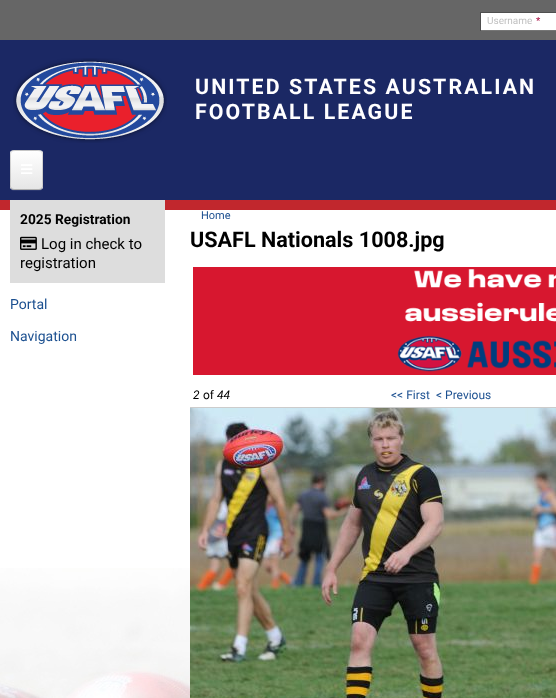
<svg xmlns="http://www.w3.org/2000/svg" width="556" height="698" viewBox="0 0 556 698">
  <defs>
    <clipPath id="clip1"><rect x="10" y="150" width="33" height="40" rx="4"/></clipPath>
    <linearGradient id="g1" gradientUnits="userSpaceOnUse" x1="26" y1="151" x2="27" y2="189"><stop offset="0" stop-color="rgb(255,255,255)"/><stop offset="1" stop-color="rgb(230,230,230)"/></linearGradient>
  </defs>
  <rect width="100%" height="100%" fill="rgb(255,255,255)"/>
  <rect x="0" y="0" width="556" height="40" fill="rgb(102,102,102)"/>
  <rect x="481" y="13" width="75" height="17" fill="rgb(255,255,255)"/>
  <rect x="480" y="12" width="76" height="1" fill="rgb(79,79,79)"/>
  <rect x="480" y="30" width="76" height="1" fill="rgb(118,118,118)"/>
  <rect x="480" y="12" width="1" height="19" fill="rgb(79,79,79)"/>
  <text x="487" y="24" font-family="Roboto" font-size="10" fill="rgb(192,192,192)">Username</text>
  <text x="536" y="24" font-family="Roboto" font-size="10" fill="rgb(170,17,68)">*</text>
  <rect x="0" y="40" width="556" height="160" fill="rgb(27,40,100)"/>
  <rect x="0" y="200" width="556" height="10" fill="rgb(193,39,45)"/>
  <image x="13" y="58" width="154" height="85" href="pic1.png"/>
  <g font-family="Roboto" font-size="21.3" font-weight="bold" letter-spacing="2.1" fill="rgb(255,254,255)">
    <text>
      <tspan x="195" y="94">UNITED STATES AUSTRALIAN</tspan>
      <tspan x="195" y="119">FOOTBALL LEAGUE</tspan>
    </text>
  </g>
  <path d="M10 186C10 191.5 13.5 191 18 191H35C39.5 191 43 191.5 43 186C43 188 41 190 39 190H14C12 190 10 188 10 186Z" fill="rgb(44,56,112)"/>
  <rect x="10" y="150" width="33" height="40" rx="4" fill="rgb(232,232,232)"/>
  <g clip-path="url(#clip1)">
    <rect x="10" y="151" width="33" height="38" fill="url(#g1)"/>
  </g>
  <path d="M41.5 188.5C41 189 40 189.5 39 189.5H14C13 189.5 12 189 11.5 188.5" fill="none" stroke="rgba(0,0,0,0.25)"/>
  <path d="M11.5 188.5C9.5 186.5 10.5 182.5 10.5 180.5V159.5C10.5 151 10 150.5 18 150.5H35C43 150.5 42.5 151 42.5 159.5V180.5C42.5 182.5 43.5 186.5 41.5 188.5" fill="none" stroke="rgba(0,0,0,0.15)"/>
  <image x="21" y="164" width="12" height="10" href="pic2.png"/>
  <image x="0" y="568" width="190" height="130" href="pic3.png"/>
  <rect x="10" y="200" width="155" height="83" fill="rgb(221,221,221)"/>
  <text x="20" y="224" font-family="Roboto" font-size="13.75" font-weight="bold" fill="rgb(0,0,0)">2025 Registration</text>
  <image x="20" y="236" width="17" height="14" href="pic4.png"/>
  <g font-family="Roboto" font-size="15" fill="rgb(0,0,0)">
    <text x="41" y="249">Log in check to</text>
    <text x="20" y="268">registration</text>
  </g>
  <g font-family="Roboto" font-size="14" fill="rgb(28,80,144)">
    <text x="10" y="309">Portal</text>
    <text x="10" y="341">Navigation</text>
  </g>
  <text x="201" y="219" font-family="Roboto" font-size="11" fill="rgb(28,80,144)">Home</text>
  <text x="190" y="247" font-family="Roboto" font-size="21.6" font-weight="bold" fill="rgb(0,0,0)">USAFL Nationals 1008.jpg</text>
  <image x="193" y="267" width="363" height="108" href="pic5.png"/>
  <rect x="190" y="407" width="366" height="1" fill="rgb(204,204,204)"/>
  <text x="193" y="399" font-family="Roboto" font-size="12" font-style="italic" fill="rgb(0,0,0)">2</text>
  <text x="203" y="399" font-family="Roboto" font-size="12" fill="rgb(0,0,0)">of</text>
  <text x="217" y="399" font-family="Roboto" font-size="12" font-style="italic" fill="rgb(0,0,0)">44</text>
  <g font-family="Roboto" font-size="12" fill="rgb(28,80,144)">
    <text x="391" y="399">&lt;&lt; First</text>
    <text x="436" y="399">&lt; Previous</text>
  </g>
  <image x="190" y="408" width="366" height="290" href="pic6.png"/>
</svg>
